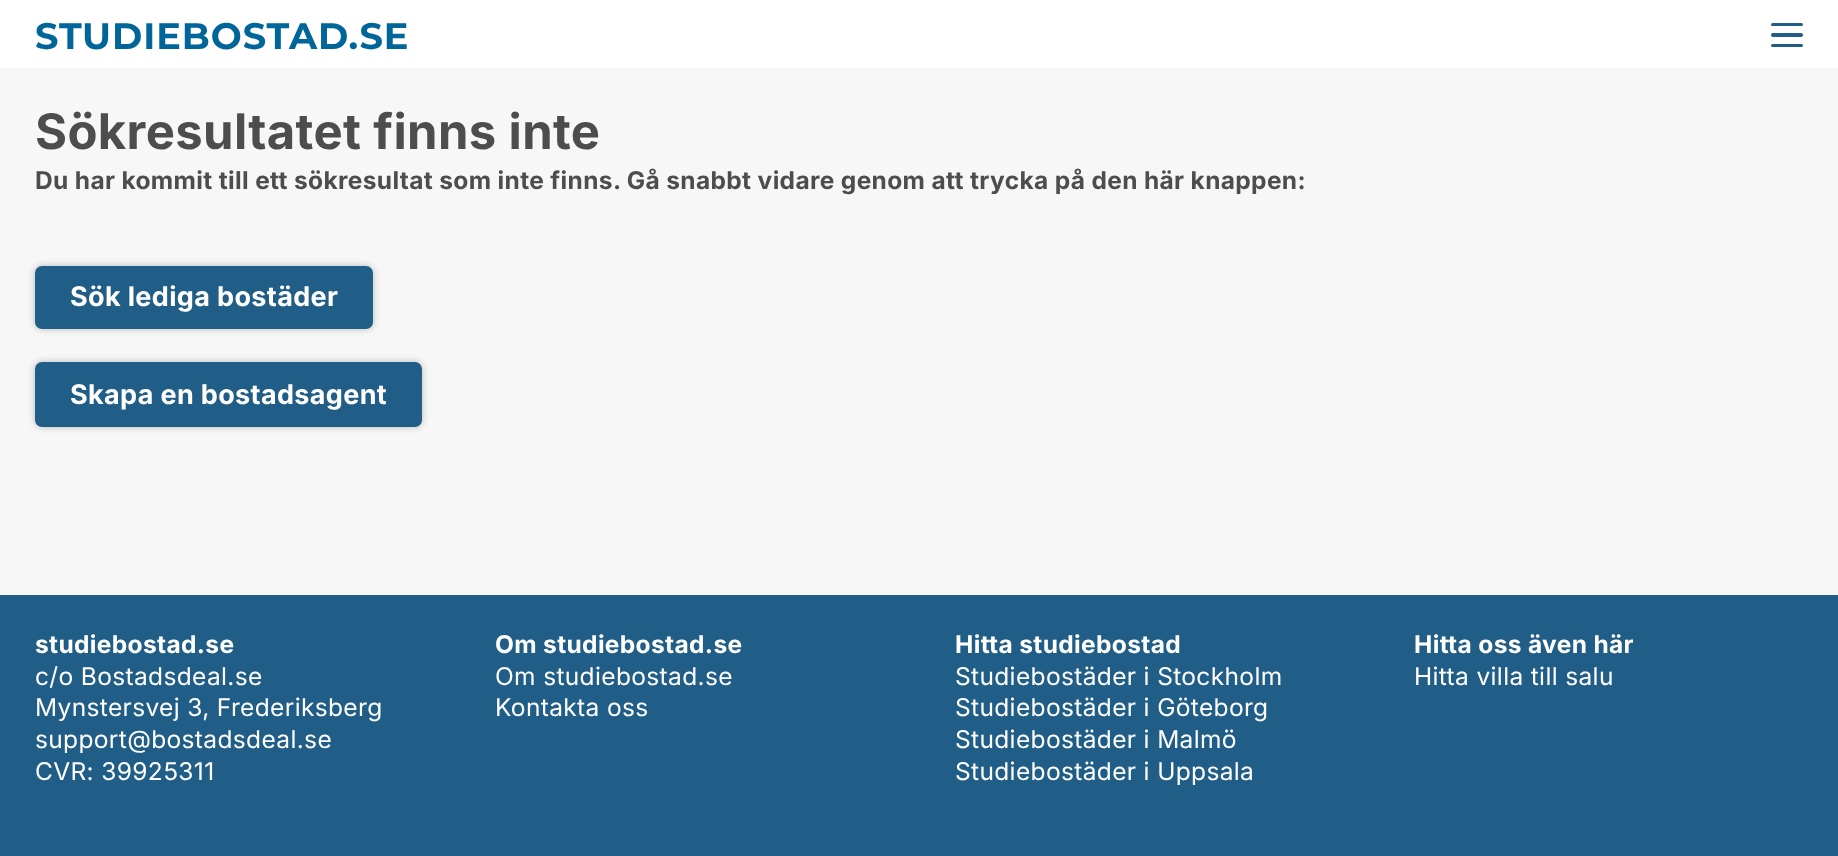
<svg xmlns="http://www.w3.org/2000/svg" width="1838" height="856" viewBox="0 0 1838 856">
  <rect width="100%" height="100%" fill="rgb(255,255,255)"/>
  <text x="35" y="49" font-family="Montserrat" font-size="36.75" font-weight="bold" letter-spacing="0.9" fill="rgb(0,102,153)">STUDIEBOSTAD.SE</text>
  <rect x="1771" y="23" width="32" height="3" rx="1.5" fill="rgb(33,94,135)"/>
  <rect x="1771" y="33" width="32" height="4" rx="2" fill="rgb(33,94,135)"/>
  <rect x="1771" y="44" width="32" height="3" rx="1.5" fill="rgb(33,94,135)"/>
  <rect x="0" y="68" width="1838" height="527" fill="rgb(247,247,247)"/>
  <text x="35" y="149" font-family="Inter" font-size="49" font-weight="bold" letter-spacing="0.35" fill="rgb(77,77,77)">Sökresultatet finns inte</text>
  <text x="35" y="189" font-family="Inter" font-size="24.5" font-weight="bold" letter-spacing="0.35" fill="rgb(77,77,77)">Du har kommit till ett sökresultat som inte finns. Gå snabbt vidare genom att trycka på den här knappen:</text>
  <rect x="35" y="266" width="338" height="63" rx="7" fill="rgba(0,0,0,0.25)" filter="blur(3.5px)"/>
  <rect x="35" y="266" width="338" height="63" rx="7" fill="rgb(33,94,135)"/>
  <text x="70" y="306" font-family="Inter" font-size="27" font-weight="bold" letter-spacing="0.35" fill="rgb(255,255,255)">Sök lediga bostäder</text>
  <rect x="35" y="362" width="387" height="65" rx="7" fill="rgba(0,0,0,0.25)" filter="blur(3.5px)"/>
  <rect x="35" y="362" width="387" height="65" rx="7" fill="rgb(33,94,135)"/>
  <text x="70" y="404" font-family="Inter" font-size="27" font-weight="bold" letter-spacing="0.35" fill="rgb(255,255,255)">Skapa en bostadsagent</text>
  <rect x="0" y="595" width="1838" height="261" fill="rgb(33,94,135)"/>
  <text x="35" y="653" font-family="Inter" font-size="24.5" font-weight="bold" letter-spacing="0.35" fill="rgb(255,255,255)">studiebostad.se</text>
  <g font-family="Inter" font-size="24.5" letter-spacing="0.35" fill="rgb(255,255,255)">
    <text>
      <tspan x="35" y="685">c/o Bostadsdeal.se</tspan>
      <tspan x="35" y="716">Mynstersvej 3, Frederiksberg</tspan>
      <tspan x="35" y="748">support@bostadsdeal.se</tspan>
      <tspan x="35" y="780">CVR: 39925311</tspan>
    </text>
  </g>
  <text x="495" y="653" font-family="Inter" font-size="24.5" font-weight="bold" letter-spacing="0.35" fill="rgb(255,255,255)">Om studiebostad.se</text>
  <g font-family="Inter" font-size="24.5" letter-spacing="0.35" fill="rgb(255,255,255)">
    <text>
      <tspan x="495" y="685">Om studiebostad.se</tspan>
      <tspan x="495" y="716">Kontakta oss</tspan>
    </text>
  </g>
  <text x="955" y="653" font-family="Inter" font-size="24.5" font-weight="bold" letter-spacing="0.35" fill="rgb(255,255,255)">Hitta studiebostad</text>
  <g font-family="Inter" font-size="24.5" letter-spacing="0.35" fill="rgb(255,255,255)">
    <text>
      <tspan x="955" y="685">Studiebostäder i Stockholm</tspan>
      <tspan x="955" y="716">Studiebostäder i Göteborg</tspan>
      <tspan x="955" y="748">Studiebostäder i Malmö</tspan>
      <tspan x="955" y="780">Studiebostäder i Uppsala</tspan>
    </text>
  </g>
  <text x="1414" y="653" font-family="Inter" font-size="24.5" font-weight="bold" letter-spacing="0.35" fill="rgb(255,255,255)">Hitta oss även här</text>
  <text x="1414" y="685" font-family="Inter" font-size="24.5" letter-spacing="0.35" fill="rgb(255,255,255)">Hitta villa till salu</text>
</svg>
